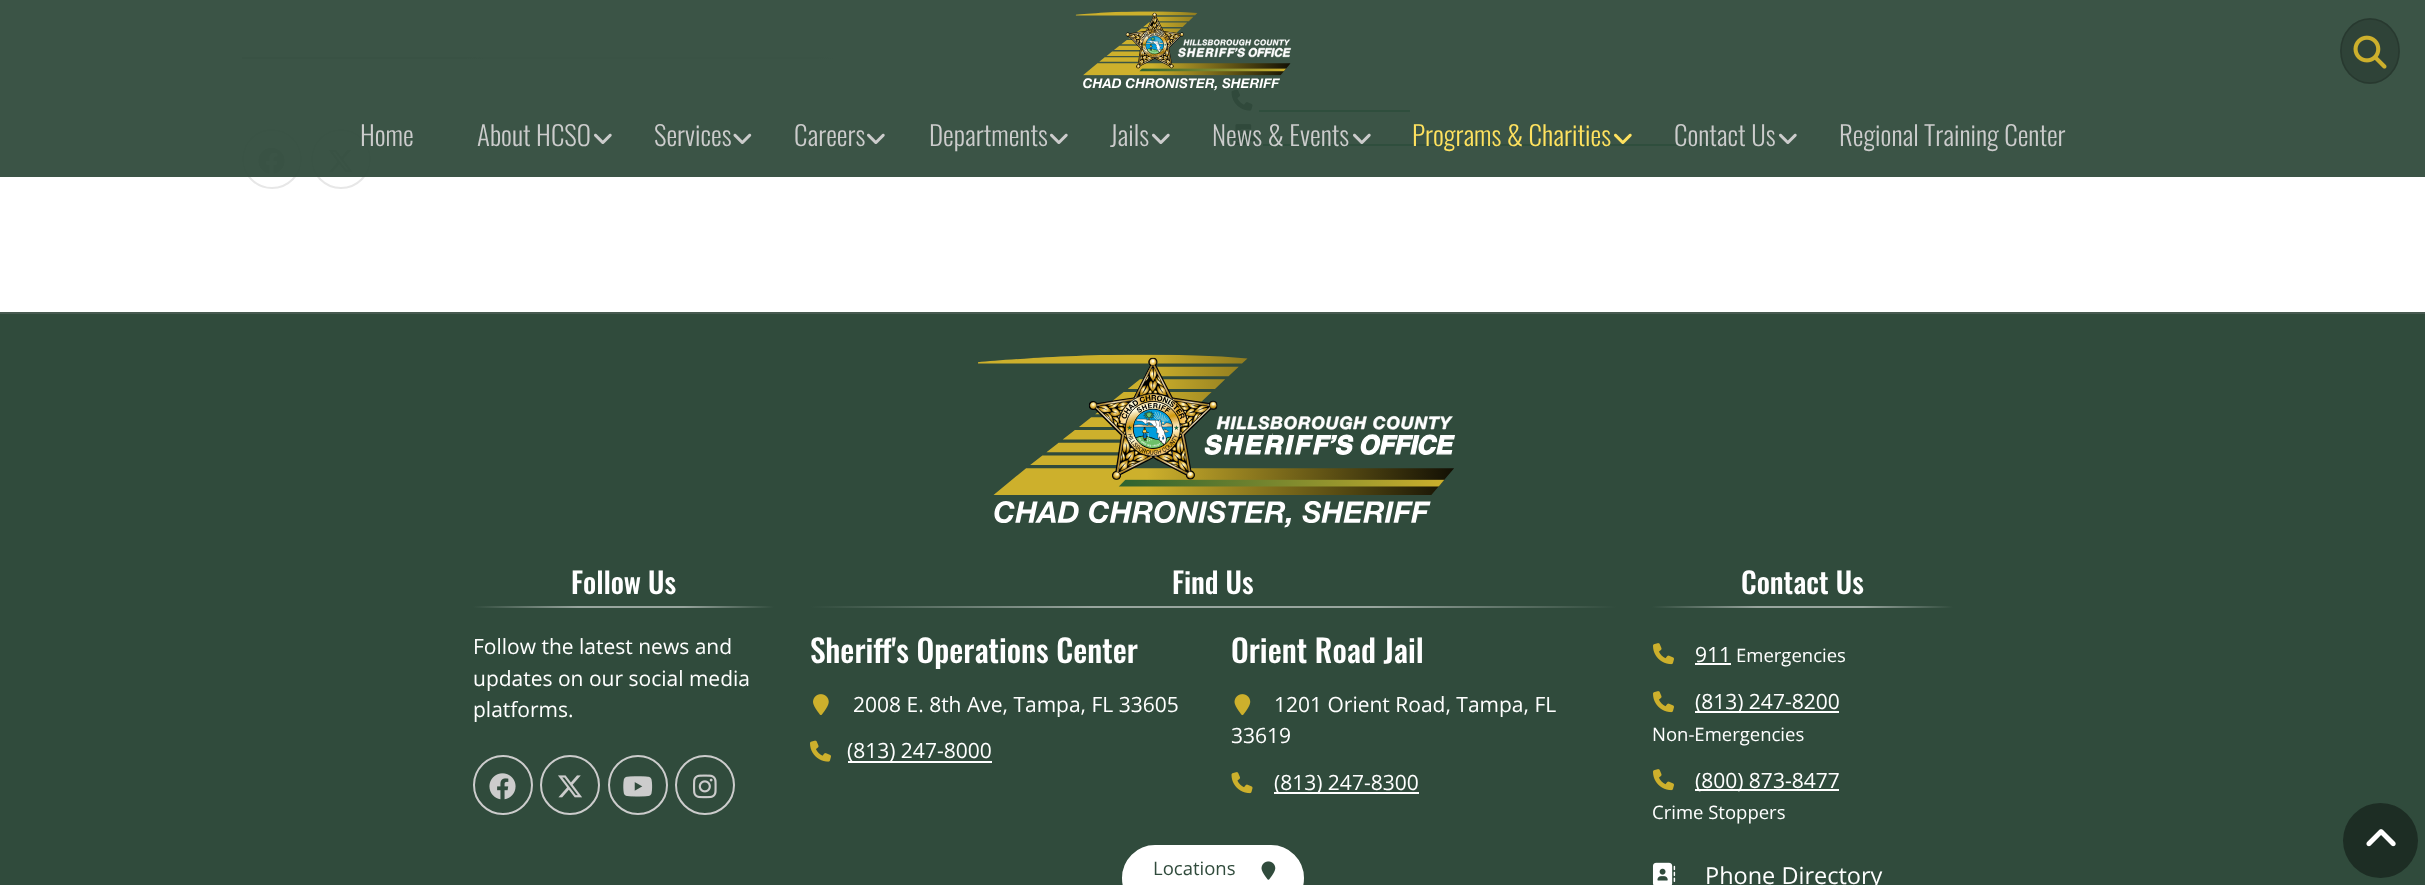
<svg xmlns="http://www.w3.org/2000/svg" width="2425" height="885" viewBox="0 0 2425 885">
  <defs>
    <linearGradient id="g1" gradientUnits="userSpaceOnUse" x1="242" y1="58" x2="1196" y2="58"><stop offset="0" stop-color="rgb(209,209,209)"/><stop offset="0.35" stop-color="rgb(224,224,224)"/><stop offset="0.7" stop-color="rgb(242,242,242)"/><stop offset="1" stop-color="rgb(255,255,255)"/></linearGradient>
    <linearGradient id="g2" gradientUnits="userSpaceOnUse" x1="473" y1="607" x2="774" y2="607"><stop offset="0" stop-color="rgb(48,75,60)"/><stop offset="0.35" stop-color="rgb(152,165,158)"/><stop offset="0.7" stop-color="rgb(152,165,158)"/><stop offset="1" stop-color="rgb(48,75,60)"/></linearGradient>
    <linearGradient id="g3" gradientUnits="userSpaceOnUse" x1="810" y1="607" x2="1616" y2="607"><stop offset="0" stop-color="rgb(48,75,60)"/><stop offset="0.35" stop-color="rgb(152,165,158)"/><stop offset="0.7" stop-color="rgb(152,165,158)"/><stop offset="1" stop-color="rgb(48,75,60)"/></linearGradient>
    <linearGradient id="g4" gradientUnits="userSpaceOnUse" x1="1652" y1="607" x2="1953" y2="607"><stop offset="0" stop-color="rgb(48,75,60)"/><stop offset="0.35" stop-color="rgb(152,165,158)"/><stop offset="0.7" stop-color="rgb(152,165,158)"/><stop offset="1" stop-color="rgb(48,75,60)"/></linearGradient>
  </defs>
  <rect width="100%" height="100%" fill="rgb(255,255,255)"/>
  <rect x="242" y="57" width="899" height="2" fill="url(#g1)"/>
  <circle cx="272" cy="159" r="29" fill="none" stroke="rgb(231,231,231)" stroke-width="2"/>
  <image x="258" y="147" width="27" height="27" href="pic1.png"/>
  <circle cx="341" cy="159" r="29" fill="none" stroke="rgb(231,231,231)" stroke-width="2"/>
  <image x="328" y="150" width="25" height="22" href="pic2.png"/>
  <image x="1231" y="89" width="22" height="22" href="pic3.png"/>
  <rect x="1259" y="110" width="151" height="2" fill="rgb(30,130,76)"/>
  <image x="1232" y="124" width="25" height="22" href="pic4.png"/>
  <rect x="1263" y="144" width="447" height="2" fill="rgb(30,130,76)"/>
  <rect x="0" y="0" width="2425" height="177" fill="rgba(48,75,60,0.95)"/>
  <image x="1075" y="11" width="217" height="80" href="pic5.png"/>
  <ellipse cx="2370" cy="51" rx="30" ry="33" fill="rgb(47,67,56)"/>
  <path d="M2370 19C2386 19 2399 33 2399 51C2399 69 2386 83 2370 83C2354 83 2341 69 2341 51C2341 33 2354 19 2370 19Z" fill="none" stroke="rgba(0,0,0,0.15)" stroke-width="1.5"/>
  <image x="2353" y="35" width="34" height="34" href="pic6.png"/>
  <g font-family="Oswald" font-size="27" font-weight="300" fill="rgb(204,204,204)">
    <text x="360" y="146">Home</text>
    <text x="477" y="146">About HCSO</text>
  </g>
  <image x="594" y="133" width="18" height="11" href="pic7.png"/>
  <text x="654" y="146" font-family="Oswald" font-size="27" font-weight="300" fill="rgb(204,204,204)">Services</text>
  <image x="733" y="133" width="19" height="11" href="pic8.png"/>
  <text x="794" y="146" font-family="Oswald" font-size="27" font-weight="300" fill="rgb(204,204,204)">Careers</text>
  <image x="867" y="133" width="18" height="11" href="pic7.png"/>
  <text x="929" y="146" font-family="Oswald" font-size="27" font-weight="300" fill="rgb(204,204,204)">Departments</text>
  <image x="1050" y="133" width="18" height="11" href="pic7.png"/>
  <text x="1110" y="146" font-family="Oswald" font-size="27" font-weight="300" fill="rgb(204,204,204)">Jails</text>
  <image x="1152" y="133" width="18" height="11" href="pic7.png"/>
  <text x="1212" y="146" font-family="Oswald" font-size="27" font-weight="300" fill="rgb(204,204,204)">News &amp; Events</text>
  <image x="1353" y="133" width="18" height="11" href="pic9.png"/>
  <text x="1412" y="146" font-family="Oswald" font-size="27" font-weight="300" fill="rgb(255,226,95)">Programs &amp; Charities</text>
  <image x="1614" y="133" width="18" height="12" href="pic10.png"/>
  <text x="1674" y="146" font-family="Oswald" font-size="27" font-weight="300" fill="rgb(204,204,204)">Contact Us</text>
  <image x="1779" y="133" width="18" height="11" href="pic7.png"/>
  <text x="1839" y="146" font-family="Oswald" font-size="27" font-weight="300" fill="rgb(204,204,204)">Regional Training Center</text>
  <rect x="0" y="312" width="2425" height="2" fill="rgb(71,90,80)"/>
  <rect x="0" y="314" width="2425" height="571" fill="rgb(48,75,60)"/>
  <image x="978" y="354" width="477" height="174" href="pic11.png"/>
  <text x="571" y="594" font-family="Oswald" font-size="29" font-weight="500" fill="rgb(255,255,255)">Follow Us</text>
  <rect x="473" y="606" width="301" height="2" fill="url(#g2)"/>
  <g font-family="Open Sans" font-size="21" fill="rgb(255,255,255)">
    <text>
      <tspan x="473" y="654">Follow the latest news and</tspan>
      <tspan x="473" y="686">updates on our social media</tspan>
      <tspan x="473" y="717">platforms.</tspan>
    </text>
  </g>
  <circle cx="503" cy="785" r="29" fill="none" stroke="rgb(204,204,204)" stroke-width="2"/>
  <image x="489" y="773" width="27" height="27" href="pic12.png"/>
  <circle cx="570" cy="785" r="29" fill="none" stroke="rgb(204,204,204)" stroke-width="2"/>
  <image x="558" y="775" width="24" height="23" href="pic13.png"/>
  <circle cx="638" cy="785" r="29" fill="none" stroke="rgb(204,204,204)" stroke-width="2"/>
  <image x="623" y="776" width="30" height="21" href="pic14.png"/>
  <circle cx="705" cy="785" r="29" fill="none" stroke="rgb(204,204,204)" stroke-width="2"/>
  <image x="693" y="774" width="24" height="25" href="pic15.png"/>
  <text x="1172" y="594" font-family="Oswald" font-size="29" font-weight="500" fill="rgb(255,255,255)">Find Us</text>
  <rect x="810" y="606" width="806" height="2" fill="url(#g3)"/>
  <text x="810" y="663" font-family="Oswald" font-size="31.5" font-weight="500" fill="rgb(255,255,255)">Sheriff's Operations Center</text>
  <image x="813" y="694" width="16" height="21" href="pic16.png"/>
  <text x="853" y="712" font-family="Open Sans" font-size="21" fill="rgb(255,255,255)">2008 E. 8th Ave, Tampa, FL 33605</text>
  <image x="810" y="740" width="21" height="22" href="pic17.png"/>
  <rect x="848" y="761" width="144" height="2" fill="rgb(255,255,255)"/>
  <text x="847" y="758" font-family="Open Sans" font-size="21" fill="rgb(255,255,255)">(813) 247-8000</text>
  <text x="1231" y="663" font-family="Oswald" font-size="31.5" font-weight="500" fill="rgb(255,255,255)">Orient Road Jail</text>
  <image x="1234" y="694" width="17" height="22" href="pic18.png"/>
  <g font-family="Open Sans" font-size="21" fill="rgb(255,255,255)">
    <text x="1274" y="712">1201 Orient Road, Tampa, FL</text>
    <text x="1231" y="743">33619</text>
  </g>
  <image x="1231" y="772" width="22" height="22" href="pic19.png"/>
  <rect x="1274" y="792" width="145" height="2" fill="rgb(255,255,255)"/>
  <text x="1274" y="790" font-family="Open Sans" font-size="21" fill="rgb(255,255,255)">(813) 247-8300</text>
  <rect x="1123" y="846" width="180" height="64" rx="32" fill="rgb(255,255,255)" stroke="rgb(255,255,255)" stroke-width="2"/>
  <text x="1153" y="875" font-family="Open Sans" font-size="18.5" fill="rgb(48,75,60)">Locations</text>
  <image x="1261" y="861" width="15" height="19" href="pic20.png"/>
  <text x="1741" y="594" font-family="Oswald" font-size="29" font-weight="500" fill="rgb(255,255,255)">Contact Us</text>
  <rect x="1652" y="606" width="301" height="2" fill="url(#g4)"/>
  <image x="1653" y="643" width="21" height="22" href="pic21.png"/>
  <text x="1695" y="662" font-family="Open Sans" font-size="21" fill="rgb(255,255,255)">911</text>
  <rect x="1695" y="663" width="36" height="2" fill="rgb(255,255,255)"/>
  <text x="1736" y="662" font-family="Open Sans" font-size="18.5" fill="rgb(255,255,255)">Emergencies</text>
  <image x="1653" y="691" width="21" height="22" href="pic21.png"/>
  <rect x="1695" y="711" width="144" height="2" fill="rgb(255,255,255)"/>
  <text x="1695" y="709" font-family="Open Sans" font-size="21" fill="rgb(255,255,255)">(813) 247-8200</text>
  <text x="1652" y="741" font-family="Open Sans" font-size="18.5" fill="rgb(255,255,255)">Non-Emergencies</text>
  <image x="1653" y="769" width="21" height="22" href="pic21.png"/>
  <rect x="1695" y="789" width="144" height="2" fill="rgb(255,255,255)"/>
  <text x="1695" y="788" font-family="Open Sans" font-size="21" fill="rgb(255,255,255)">(800) 873-8477</text>
  <text x="1652" y="819" font-family="Open Sans" font-size="18.5" fill="rgb(255,255,255)">Crime Stoppers</text>
  <image x="1652" y="862" width="24" height="23" href="pic22.png"/>
  <text x="1705" y="884" font-family="Open Sans" font-size="23.5" fill="rgb(255,255,255)">Phone Directory</text>
  <circle cx="2380.5" cy="840.5" r="37.5" fill="rgb(29,45,36)"/>
  <image x="2366" y="829" width="30" height="18" href="pic23.png"/>
</svg>
